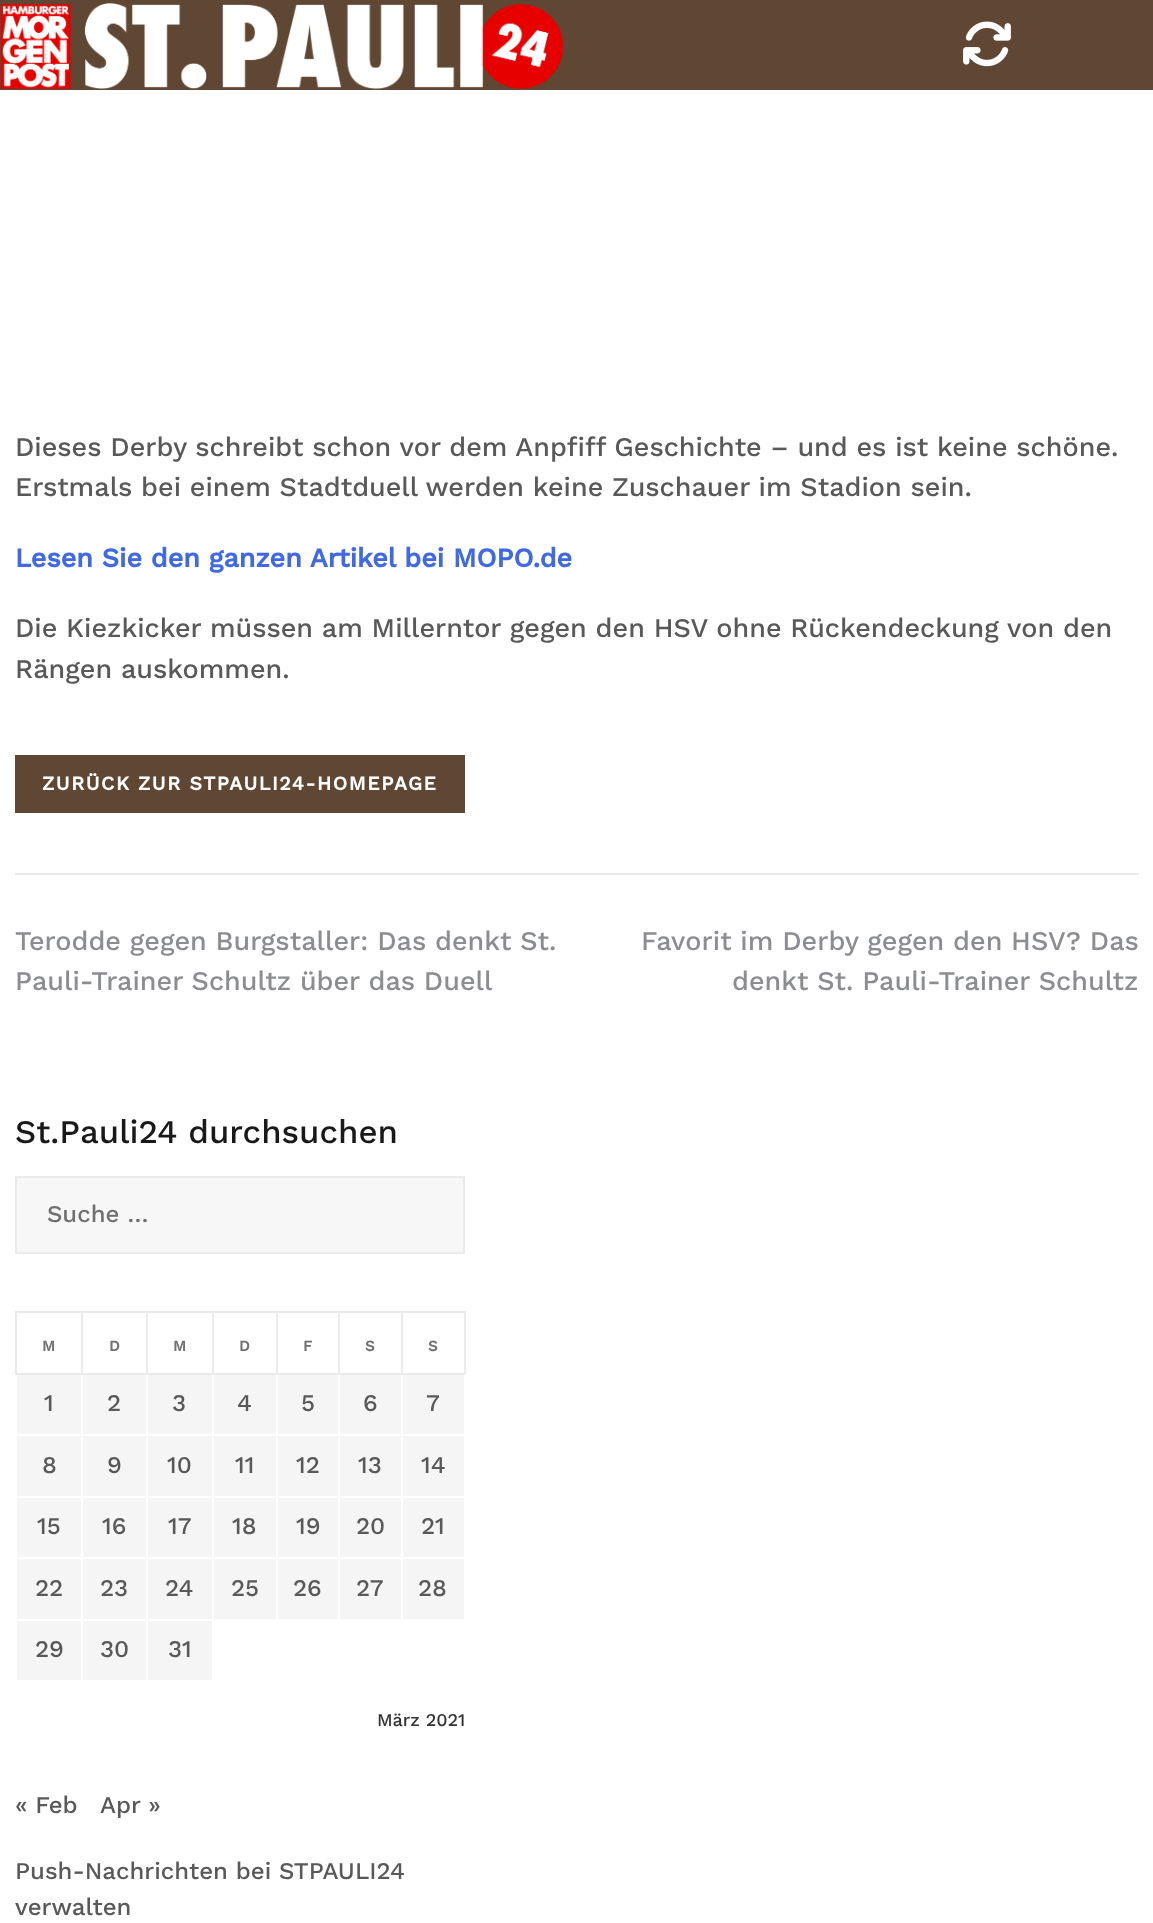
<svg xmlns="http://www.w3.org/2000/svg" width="1153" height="1923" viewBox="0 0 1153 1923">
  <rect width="100%" height="100%" fill="rgb(255,255,255)"/>
  <rect x="0" y="0" width="1153" height="90" fill="rgb(96,71,52)"/>
  <image x="1" y="3" width="563" height="87" href="pic1.png"/>
  <image x="963" y="21" width="48" height="46" href="pic2.png"/>
  <rect x="15" y="873" width="1124" height="2" fill="rgb(235,235,235)"/>
  <g font-family="Work Sans" font-size="27" font-weight="500" fill="rgb(89,89,89)">
    <text>
      <tspan x="15" y="456">Dieses Derby schreibt schon vor dem Anpfiff Geschichte – und es ist keine schöne.</tspan>
      <tspan x="15" y="496">Erstmals bei einem Stadtduell werden keine Zuschauer im Stadion sein.</tspan>
    </text>
  </g>
  <text x="15" y="567" font-family="Work Sans" font-size="27" font-weight="bold" fill="rgb(65,105,225)">Lesen Sie den ganzen Artikel bei MOPO.de</text>
  <g font-family="Work Sans" font-size="27" font-weight="500" fill="rgb(89,89,89)">
    <text>
      <tspan x="15" y="637">Die Kiezkicker müssen am Millerntor gegen den HSV ohne Rückendeckung von den</tspan>
      <tspan x="15" y="678">Rängen auskommen.</tspan>
    </text>
  </g>
  <rect x="15" y="755" width="450" height="58" fill="rgb(96,71,52)"/>
  <text x="42" y="790" font-family="Work Sans" font-size="19.5" font-weight="bold" letter-spacing="1.5" fill="rgb(255,255,255)">ZURÜCK ZUR STPAULI24-HOMEPAGE</text>
  <g font-family="Work Sans" font-size="27" font-weight="500" fill="rgb(140,141,144)">
    <text>
      <tspan x="15" y="950">Terodde gegen Burgstaller: Das denkt St.</tspan>
      <tspan x="15" y="990">Pauli-Trainer Schultz über das Duell</tspan>
    </text>
    <text x="641" y="950">Favorit im Derby gegen den HSV? Das</text>
    <text x="732" y="990">denkt St. Pauli-Trainer Schultz</text>
  </g>
  <text x="15" y="1143" font-family="Work Sans" font-size="33" font-weight="500" fill="rgb(25,25,25)">St.Pauli24 durchsuchen</text>
  <rect x="16" y="1177" width="448" height="76" fill="rgb(247,247,247)" stroke="rgb(235,235,235)" stroke-width="2"/>
  <text x="47" y="1222" font-family="Work Sans" font-size="24" font-weight="500" fill="rgb(112,112,112)">Suche …</text>
  <rect x="401" y="1311" width="64" height="2" fill="rgb(235,235,235)"/>
  <rect x="464" y="1311" width="2" height="63" fill="rgb(235,235,235)"/>
  <rect x="401" y="1373" width="64" height="2" fill="rgb(235,235,235)"/>
  <rect x="401" y="1311" width="2" height="63" fill="rgb(235,235,235)"/>
  <rect x="338" y="1311" width="64" height="2" fill="rgb(235,235,235)"/>
  <rect x="338" y="1373" width="64" height="2" fill="rgb(235,235,235)"/>
  <rect x="338" y="1311" width="2" height="63" fill="rgb(235,235,235)"/>
  <rect x="276" y="1311" width="63" height="2" fill="rgb(235,235,235)"/>
  <rect x="276" y="1373" width="63" height="2" fill="rgb(235,235,235)"/>
  <rect x="276" y="1311" width="2" height="63" fill="rgb(235,235,235)"/>
  <rect x="212" y="1311" width="66" height="2" fill="rgb(235,235,235)"/>
  <rect x="212" y="1373" width="66" height="2" fill="rgb(235,235,235)"/>
  <rect x="212" y="1311" width="2" height="63" fill="rgb(235,235,235)"/>
  <rect x="146" y="1311" width="67" height="2" fill="rgb(235,235,235)"/>
  <rect x="146" y="1373" width="67" height="2" fill="rgb(235,235,235)"/>
  <rect x="146" y="1311" width="2" height="63" fill="rgb(235,235,235)"/>
  <rect x="81" y="1311" width="66" height="2" fill="rgb(235,235,235)"/>
  <rect x="81" y="1373" width="66" height="2" fill="rgb(235,235,235)"/>
  <rect x="81" y="1311" width="2" height="63" fill="rgb(235,235,235)"/>
  <rect x="15" y="1311" width="68" height="2" fill="rgb(235,235,235)"/>
  <rect x="15" y="1373" width="68" height="2" fill="rgb(235,235,235)"/>
  <rect x="15" y="1311" width="2" height="63" fill="rgb(235,235,235)"/>
  <g font-family="Work Sans" font-size="15" font-weight="bold" fill="rgb(112,112,112)">
    <text x="42" y="1351">M</text>
    <text x="109" y="1351">D</text>
    <text x="173" y="1351">M</text>
    <text x="239" y="1351">D</text>
    <text x="303" y="1351">F</text>
    <text x="365" y="1351">S</text>
    <text x="428" y="1351">S</text>
  </g>
  <rect x="17" y="1375" width="64" height="59" fill="rgb(245,245,245)"/>
  <text x="44" y="1411" font-family="Work Sans" font-size="24" font-weight="500" fill="rgb(89,89,89)">1</text>
  <rect x="83" y="1375" width="63" height="59" fill="rgb(245,245,245)"/>
  <text x="107" y="1411" font-family="Work Sans" font-size="24" font-weight="500" fill="rgb(89,89,89)">2</text>
  <rect x="148" y="1375" width="64" height="59" fill="rgb(245,245,245)"/>
  <text x="172" y="1411" font-family="Work Sans" font-size="24" font-weight="500" fill="rgb(89,89,89)">3</text>
  <rect x="214" y="1375" width="62" height="59" fill="rgb(245,245,245)"/>
  <text x="237" y="1411" font-family="Work Sans" font-size="24" font-weight="500" fill="rgb(89,89,89)">4</text>
  <rect x="278" y="1375" width="60" height="59" fill="rgb(245,245,245)"/>
  <text x="301" y="1411" font-family="Work Sans" font-size="24" font-weight="500" fill="rgb(89,89,89)">5</text>
  <rect x="340" y="1375" width="61" height="59" fill="rgb(245,245,245)"/>
  <text x="363" y="1411" font-family="Work Sans" font-size="24" font-weight="500" fill="rgb(89,89,89)">6</text>
  <rect x="403" y="1375" width="61" height="59" fill="rgb(245,245,245)"/>
  <text x="426" y="1411" font-family="Work Sans" font-size="24" font-weight="500" fill="rgb(89,89,89)">7</text>
  <rect x="17" y="1436" width="64" height="60" fill="rgb(245,245,245)"/>
  <text x="42" y="1473" font-family="Work Sans" font-size="24" font-weight="500" fill="rgb(89,89,89)">8</text>
  <rect x="83" y="1436" width="63" height="60" fill="rgb(245,245,245)"/>
  <text x="107" y="1473" font-family="Work Sans" font-size="24" font-weight="500" fill="rgb(89,89,89)">9</text>
  <rect x="148" y="1436" width="64" height="60" fill="rgb(245,245,245)"/>
  <text x="167" y="1473" font-family="Work Sans" font-size="24" font-weight="500" fill="rgb(89,89,89)">10</text>
  <rect x="214" y="1436" width="62" height="60" fill="rgb(245,245,245)"/>
  <text x="235" y="1473" font-family="Work Sans" font-size="24" font-weight="500" fill="rgb(89,89,89)">11</text>
  <rect x="278" y="1436" width="60" height="60" fill="rgb(245,245,245)"/>
  <text x="296" y="1473" font-family="Work Sans" font-size="24" font-weight="500" fill="rgb(89,89,89)">12</text>
  <rect x="340" y="1436" width="61" height="60" fill="rgb(245,245,245)"/>
  <text x="358" y="1473" font-family="Work Sans" font-size="24" font-weight="500" fill="rgb(89,89,89)">13</text>
  <rect x="403" y="1436" width="61" height="60" fill="rgb(245,245,245)"/>
  <text x="421" y="1473" font-family="Work Sans" font-size="24" font-weight="500" fill="rgb(89,89,89)">14</text>
  <rect x="17" y="1498" width="64" height="59" fill="rgb(245,245,245)"/>
  <text x="37" y="1534" font-family="Work Sans" font-size="24" font-weight="500" fill="rgb(89,89,89)">15</text>
  <rect x="83" y="1498" width="63" height="59" fill="rgb(245,245,245)"/>
  <text x="102" y="1534" font-family="Work Sans" font-size="24" font-weight="500" fill="rgb(89,89,89)">16</text>
  <rect x="148" y="1498" width="64" height="59" fill="rgb(245,245,245)"/>
  <text x="168" y="1534" font-family="Work Sans" font-size="24" font-weight="500" fill="rgb(89,89,89)">17</text>
  <rect x="214" y="1498" width="62" height="59" fill="rgb(245,245,245)"/>
  <text x="232" y="1534" font-family="Work Sans" font-size="24" font-weight="500" fill="rgb(89,89,89)">18</text>
  <rect x="278" y="1498" width="60" height="59" fill="rgb(245,245,245)"/>
  <text x="296" y="1534" font-family="Work Sans" font-size="24" font-weight="500" fill="rgb(89,89,89)">19</text>
  <rect x="340" y="1498" width="61" height="59" fill="rgb(245,245,245)"/>
  <text x="356" y="1534" font-family="Work Sans" font-size="24" font-weight="500" fill="rgb(89,89,89)">20</text>
  <rect x="403" y="1498" width="61" height="59" fill="rgb(245,245,245)"/>
  <text x="421" y="1534" font-family="Work Sans" font-size="24" font-weight="500" fill="rgb(89,89,89)">21</text>
  <rect x="17" y="1559" width="64" height="60" fill="rgb(245,245,245)"/>
  <text x="35" y="1596" font-family="Work Sans" font-size="24" font-weight="500" fill="rgb(89,89,89)">22</text>
  <rect x="83" y="1559" width="63" height="60" fill="rgb(245,245,245)"/>
  <text x="100" y="1596" font-family="Work Sans" font-size="24" font-weight="500" fill="rgb(89,89,89)">23</text>
  <rect x="148" y="1559" width="64" height="60" fill="rgb(245,245,245)"/>
  <text x="165" y="1596" font-family="Work Sans" font-size="24" font-weight="500" fill="rgb(89,89,89)">24</text>
  <rect x="214" y="1559" width="62" height="60" fill="rgb(245,245,245)"/>
  <text x="231" y="1596" font-family="Work Sans" font-size="24" font-weight="500" fill="rgb(89,89,89)">25</text>
  <rect x="278" y="1559" width="60" height="60" fill="rgb(245,245,245)"/>
  <text x="293" y="1596" font-family="Work Sans" font-size="24" font-weight="500" fill="rgb(89,89,89)">26</text>
  <rect x="340" y="1559" width="61" height="60" fill="rgb(245,245,245)"/>
  <text x="356" y="1596" font-family="Work Sans" font-size="24" font-weight="500" fill="rgb(89,89,89)">27</text>
  <rect x="403" y="1559" width="61" height="60" fill="rgb(245,245,245)"/>
  <text x="418" y="1596" font-family="Work Sans" font-size="24" font-weight="500" fill="rgb(89,89,89)">28</text>
  <rect x="17" y="1621" width="64" height="59" fill="rgb(245,245,245)"/>
  <text x="35" y="1657" font-family="Work Sans" font-size="24" font-weight="500" fill="rgb(89,89,89)">29</text>
  <rect x="83" y="1621" width="63" height="59" fill="rgb(245,245,245)"/>
  <text x="100" y="1657" font-family="Work Sans" font-size="24" font-weight="500" fill="rgb(89,89,89)">30</text>
  <rect x="148" y="1621" width="64" height="59" fill="rgb(245,245,245)"/>
  <text x="168" y="1657" font-family="Work Sans" font-size="24" font-weight="500" fill="rgb(89,89,89)">31</text>
  <text x="377" y="1726" font-family="Work Sans" font-size="18" font-weight="500" fill="rgb(51,51,51)">März 2021</text>
  <g font-family="Work Sans" font-size="24" font-weight="500" fill="rgb(89,89,89)">
    <text x="15" y="1813">« Feb</text>
    <text x="100" y="1813">Apr »</text>
    <text>
      <tspan x="15" y="1879">Push-Nachrichten bei STPAULI24</tspan>
      <tspan x="15" y="1915">verwalten</tspan>
    </text>
  </g>
</svg>
